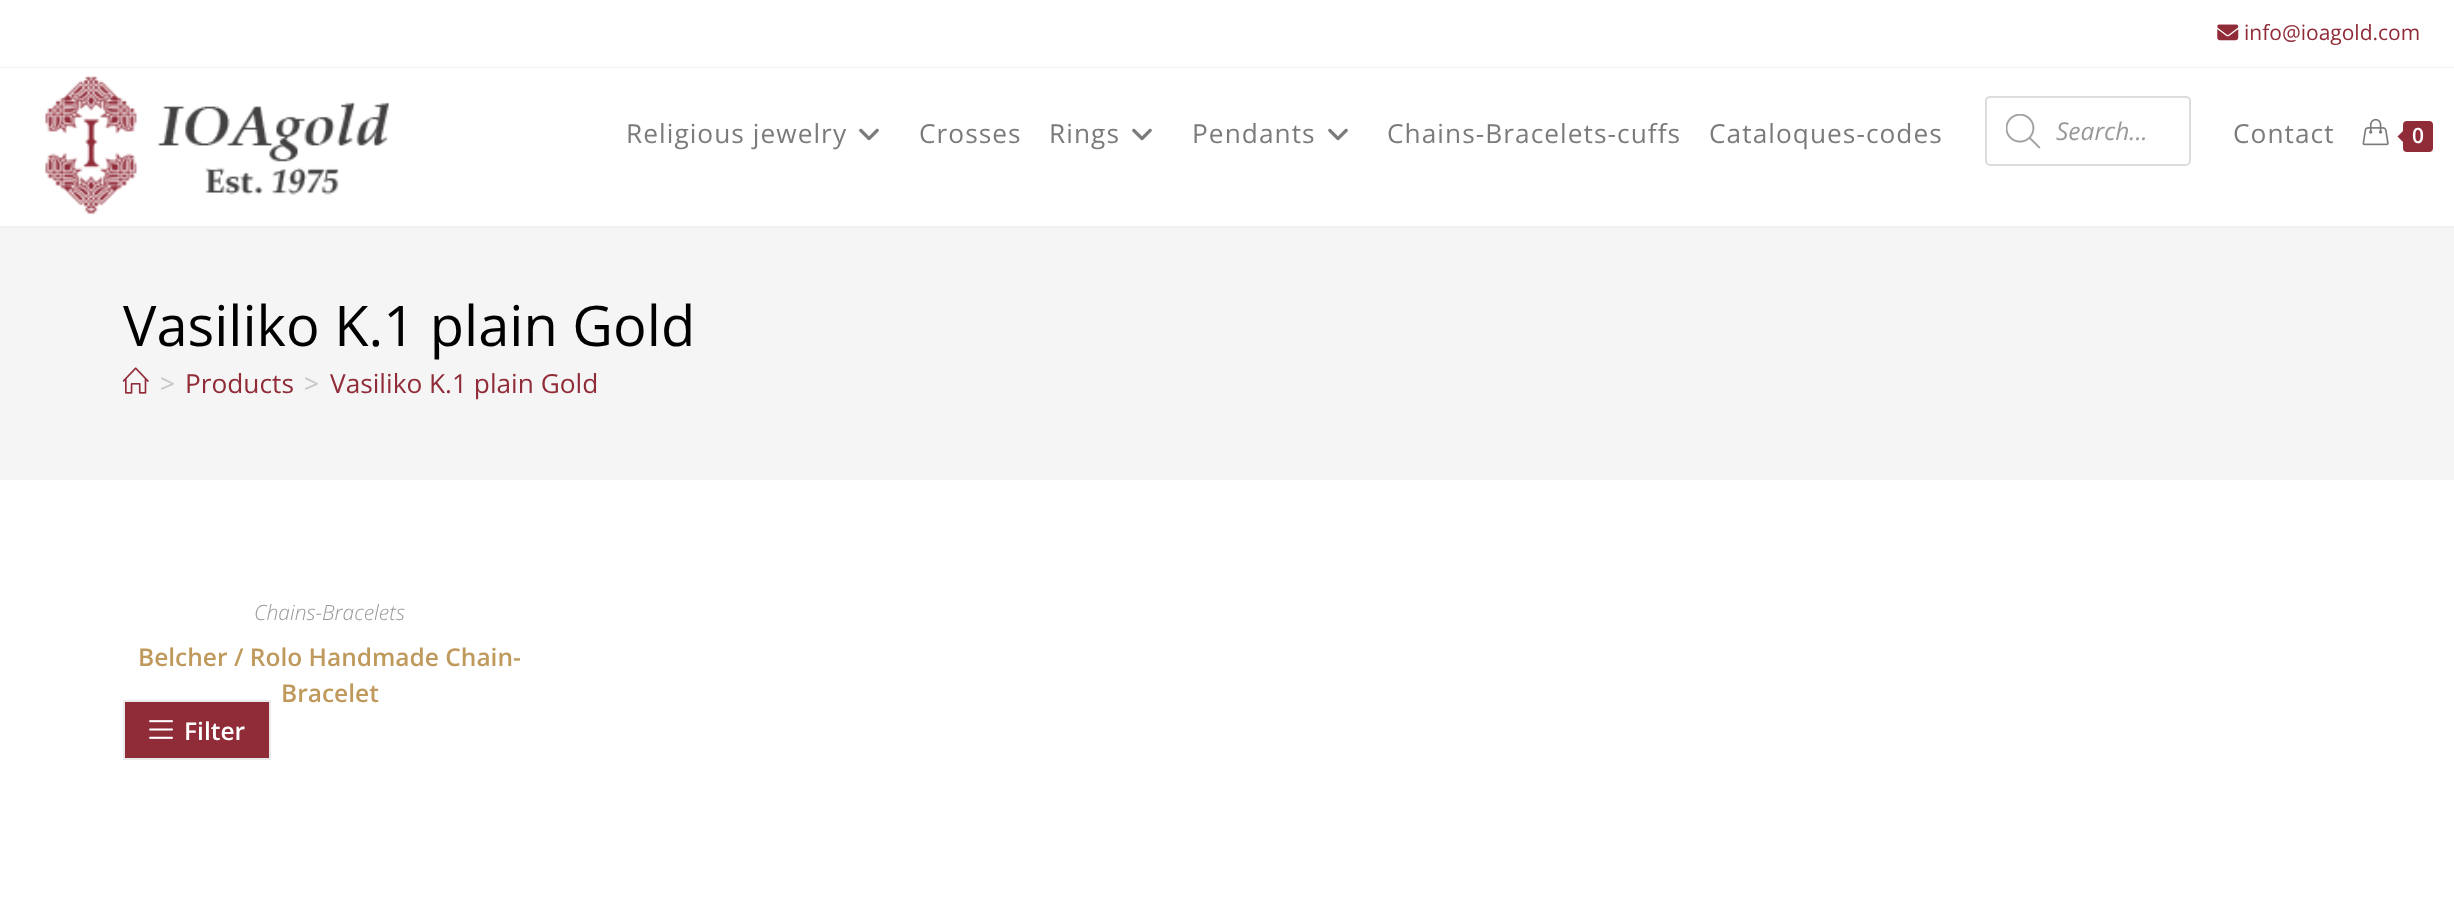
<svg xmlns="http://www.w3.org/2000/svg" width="2454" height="910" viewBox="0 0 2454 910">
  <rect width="100%" height="100%" fill="rgb(255,255,255)"/>
  <rect x="0" y="67" width="2454" height="1" fill="rgb(241,241,241)"/>
  <image x="2217" y="24" width="22" height="17" href="pic1.png"/>
  <text x="2244" y="40" font-family="Open Sans" font-size="21" fill="rgb(144,43,56)">info@ioagold.com</text>
  <rect x="0" y="226" width="2454" height="2" fill="rgb(241,241,241)"/>
  <image x="45" y="76" width="345" height="138" href="pic2.png"/>
  <text x="626" y="143" font-family="Open Sans" font-size="26.25" letter-spacing="1.05" fill="rgb(123,123,123)">Religious jewelry</text>
  <image x="859" y="128" width="20" height="13" href="pic3.png"/>
  <g font-family="Open Sans" font-size="26.25" letter-spacing="1.05" fill="rgb(123,123,123)">
    <text x="919" y="143">Crosses</text>
    <text x="1049" y="143">Rings</text>
  </g>
  <image x="1132" y="128" width="20" height="13" href="pic3.png"/>
  <text x="1192" y="143" font-family="Open Sans" font-size="26.25" letter-spacing="1.05" fill="rgb(123,123,123)">Pendants</text>
  <image x="1328" y="128" width="20" height="13" href="pic3.png"/>
  <g font-family="Open Sans" font-size="26.25" letter-spacing="1.05" fill="rgb(123,123,123)">
    <text x="1387" y="143">Chains-Bracelets-cuffs</text>
    <text x="1709" y="143">Cataloques-codes</text>
  </g>
  <rect x="1986" y="97" width="204" height="68" rx="4" fill="none" stroke="rgb(221,221,221)" stroke-width="2"/>
  <image x="2006" y="114" width="35" height="35" href="pic4.png"/>
  <text x="2056" y="140" font-family="Open Sans" font-size="24.5" font-style="italic" fill="rgb(153,153,153)">Search...</text>
  <text x="2233" y="143" font-family="Open Sans" font-size="26.25" letter-spacing="1.05" fill="rgb(123,123,123)">Contact</text>
  <image x="2362" y="118" width="27" height="28" href="pic5.png"/>
  <rect x="2403" y="121" width="30" height="31" rx="4" fill="rgb(144,43,56)"/>
  <path d="M2406 128V145L2397.5 136.5Z" fill="rgb(144,43,56)"/>
  <text x="2412" y="143" font-family="Open Sans" font-size="21" font-weight="600" fill="rgb(255,255,255)">0</text>
  <rect x="0" y="228" width="2454" height="252" fill="rgb(245,245,245)"/>
  <text x="123" y="346" font-family="Open Sans" font-size="56" fill="rgb(0,0,0)">Vasiliko K.1 plain Gold</text>
  <image x="123" y="367" width="26" height="27" href="pic6.png"/>
  <text x="160" y="393" font-family="Open Sans" font-size="26.25" fill="rgb(198,198,198)">&gt;</text>
  <text x="185" y="393" font-family="Open Sans" font-size="26.25" fill="rgb(144,43,56)">Products</text>
  <text x="304" y="393" font-family="Open Sans" font-size="26.25" fill="rgb(198,198,198)">&gt;</text>
  <text x="330" y="393" font-family="Open Sans" font-size="26.25" fill="rgb(144,43,56)">Vasiliko K.1 plain Gold</text>
  <text x="254" y="620" font-family="Open Sans" font-size="21" font-weight="300" font-style="italic" fill="rgb(153,153,153)">Chains-Bracelets</text>
  <g font-family="Open Sans" font-size="24.5" font-weight="600" fill="rgb(192,154,93)">
    <text x="138" y="666">Belcher / Rolo Handmade Chain-</text>
    <text x="281" y="702">Bracelet</text>
  </g>
  <rect x="124" y="701" width="146" height="58" fill="rgb(144,43,56)" stroke="rgb(234,234,234)" stroke-width="2"/>
  <image x="149" y="720" width="24" height="19" href="pic7.png"/>
  <text x="184" y="740" font-family="Open Sans" font-size="24.5" font-weight="600" fill="rgb(255,255,255)">Filter</text>
</svg>
